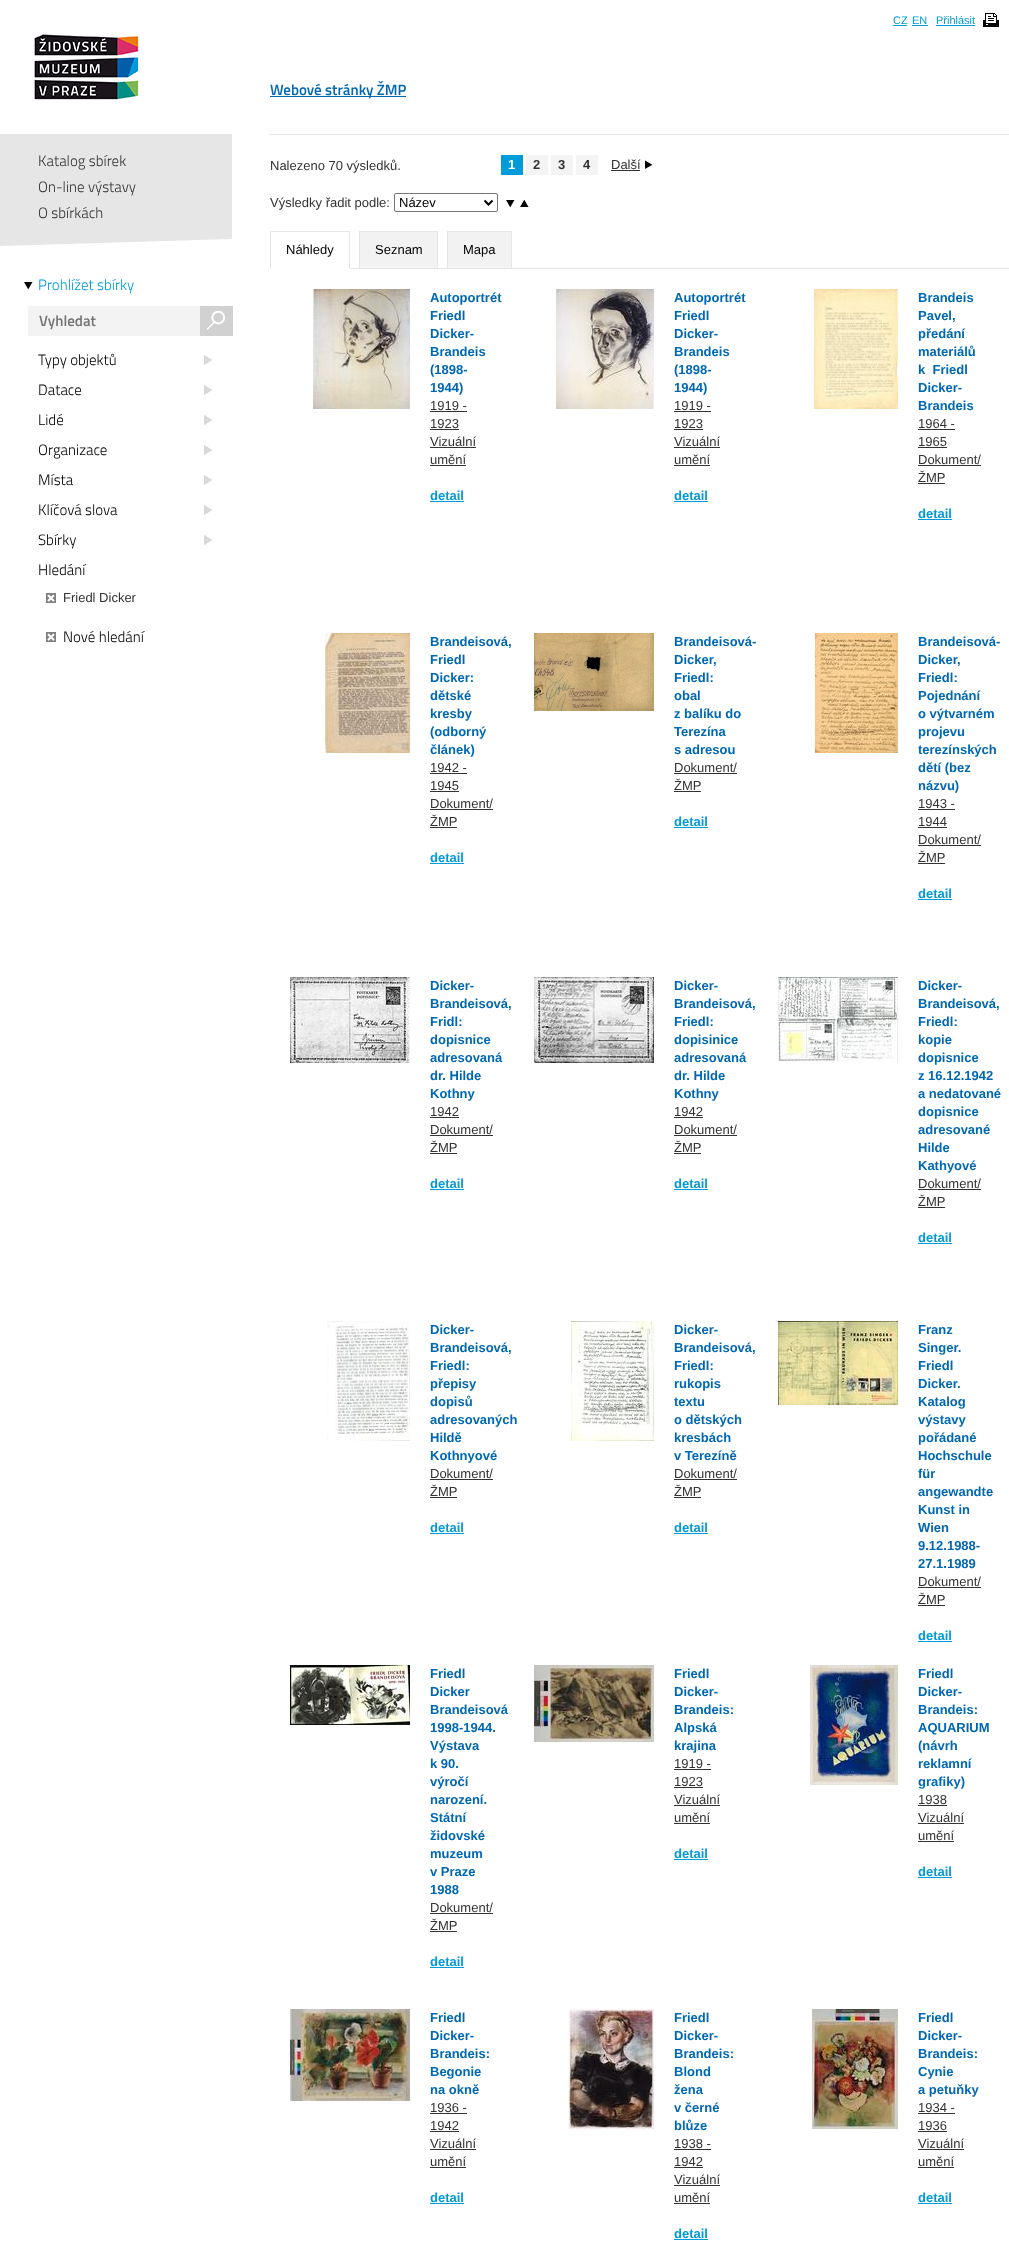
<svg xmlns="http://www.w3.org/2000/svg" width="1009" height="2244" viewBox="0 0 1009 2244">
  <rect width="100%" height="100%" fill="rgb(255,255,255)"/>
  <text x="893" y="24" font-family="Liberation Sans" font-size="11" fill="rgb(0,155,217)">CZ</text>
  <rect x="893" y="25" width="14" height="1" fill="rgb(0,155,217)"/>
  <text x="912" y="24" font-family="Liberation Sans" font-size="11" fill="rgb(0,155,217)">EN</text>
  <rect x="912" y="25" width="16" height="1" fill="rgb(0,155,217)"/>
  <text x="936" y="24" font-family="Liberation Sans" font-size="11" fill="rgb(0,155,217)">Přihlásit</text>
  <rect x="936" y="25" width="39" height="1" fill="rgb(0,155,217)"/>
  <image x="983" y="13" width="16" height="14" href="pic1.png"/>
  <image x="34" y="34" width="105" height="66" href="pic2.png"/>
  <rect x="270" y="96" width="136" height="1" fill="rgb(0,104,179)"/>
  <text x="270" y="95" font-family="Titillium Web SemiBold" font-size="15" font-weight="600" fill="rgb(0,104,179)">Webové stránky ŽMP</text>
  <rect x="0" y="134" width="232" height="105" fill="rgb(230,230,230)"/>
  <image x="0" y="239" width="232" height="9" href="pic3.png"/>
  <g font-family="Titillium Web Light" font-size="15" font-weight="300" fill="rgb(51,51,51)">
    <text>
      <tspan x="38" y="166">Katalog sbírek</tspan>
      <tspan x="38" y="192">On-line výstavy</tspan>
      <tspan x="38" y="218">O sbírkách</tspan>
    </text>
  </g>
  <image x="24" y="282" width="9" height="7" href="pic4.png"/>
  <text x="38" y="290" font-family="Titillium Web Light" font-size="15" font-weight="300" fill="rgb(0,155,217)">Prohlížet sbírky</text>
  <rect x="28" y="306" width="172" height="30" fill="rgb(243,243,243)"/>
  <text x="39" y="326" font-family="Titillium Web SemiBold" font-size="15" font-weight="600" fill="rgb(117,117,117)">Vyhledat</text>
  <rect x="200" y="306" width="33" height="30" fill="rgb(209,209,209)"/>
  <image x="207" y="310" width="18" height="20" href="pic5.png"/>
  <text x="38" y="365" font-family="Titillium Web Light" font-size="15" font-weight="300" fill="rgb(0,0,0)">Typy objektů</text>
  <image x="204" y="355" width="8" height="10" href="pic6.png"/>
  <text x="38" y="395" font-family="Titillium Web Light" font-size="15" font-weight="300" fill="rgb(0,0,0)">Datace</text>
  <image x="204" y="385" width="8" height="10" href="pic6.png"/>
  <text x="38" y="425" font-family="Titillium Web Light" font-size="15" font-weight="300" fill="rgb(0,0,0)">Lidé</text>
  <image x="204" y="415" width="8" height="10" href="pic6.png"/>
  <text x="38" y="455" font-family="Titillium Web Light" font-size="15" font-weight="300" fill="rgb(0,0,0)">Organizace</text>
  <image x="204" y="445" width="8" height="10" href="pic6.png"/>
  <text x="38" y="485" font-family="Titillium Web Light" font-size="15" font-weight="300" fill="rgb(0,0,0)">Místa</text>
  <image x="204" y="475" width="8" height="10" href="pic6.png"/>
  <text x="38" y="515" font-family="Titillium Web Light" font-size="15" font-weight="300" fill="rgb(0,0,0)">Klíčová slova</text>
  <image x="204" y="505" width="8" height="10" href="pic6.png"/>
  <text x="38" y="545" font-family="Titillium Web Light" font-size="15" font-weight="300" fill="rgb(0,0,0)">Sbírky</text>
  <image x="204" y="535" width="8" height="10" href="pic6.png"/>
  <text x="38" y="575" font-family="Titillium Web Light" font-size="15" font-weight="300" fill="rgb(0,0,0)">Hledání</text>
  <image x="46" y="593" width="10" height="10" href="pic7.png"/>
  <text x="63" y="602" font-family="Liberation Sans" font-size="13" fill="rgb(51,51,51)">Friedl Dicker</text>
  <image x="46" y="632" width="10" height="10" href="pic7.png"/>
  <text x="63" y="642" font-family="Titillium Web Light" font-size="15" font-weight="300" fill="rgb(0,0,0)">Nové hledání</text>
  <rect x="270" y="134" width="739" height="1" fill="rgb(230,230,230)"/>
  <text x="270" y="170" font-family="Liberation Sans" font-size="13" fill="rgb(51,51,51)">Nalezeno 70 výsledků.</text>
  <rect x="501" y="155" width="22" height="20" fill="rgb(0,155,217)"/>
  <text x="508" y="169" font-family="Liberation Sans" font-size="13" font-weight="bold" fill="rgb(255,255,255)">1</text>
  <rect x="526" y="155" width="22" height="20" fill="rgb(244,244,244)"/>
  <text x="533" y="169" font-family="Liberation Sans" font-size="13" font-weight="bold" fill="rgb(51,51,51)">2</text>
  <rect x="551" y="155" width="22" height="20" fill="rgb(244,244,244)"/>
  <text x="558" y="169" font-family="Liberation Sans" font-size="13" font-weight="bold" fill="rgb(51,51,51)">3</text>
  <rect x="576" y="155" width="22" height="20" fill="rgb(244,244,244)"/>
  <text x="583" y="169" font-family="Liberation Sans" font-size="13" font-weight="bold" fill="rgb(51,51,51)">4</text>
  <text x="611" y="169" font-family="Liberation Sans" font-size="13" fill="rgb(51,51,51)">Další</text>
  <rect x="611" y="170" width="29" height="1" fill="rgb(51,51,51)"/>
  <image x="645" y="160" width="7" height="9" href="pic8.png"/>
  <text x="270" y="207" font-family="Liberation Sans" font-size="13" fill="rgb(51,51,51)">Výsledky řadit podle:</text>
  <rect x="394.5" y="193.5" width="103" height="18" rx="1.5" fill="none" stroke="rgb(118,118,118)"/>
  <path d="M484.5 200.5L488.5 204.5L492.5 200.5" fill="none" stroke="rgb(0,0,0)" stroke-width="2"/>
  <text x="399" y="207" font-family="Liberation Sans" font-size="13" fill="rgb(0,0,0)">Název</text>
  <image x="506" y="200" width="9" height="7" href="pic4.png"/>
  <image x="520" y="200" width="9" height="7" href="pic9.png"/>
  <rect x="350" y="268" width="659" height="1" fill="rgb(230,230,230)"/>
  <rect x="270" y="231" width="80" height="1" fill="rgb(230,230,230)"/>
  <rect x="349" y="231" width="1" height="38" fill="rgb(230,230,230)"/>
  <rect x="349" y="268" width="1" height="1" fill="rgb(255,255,255)"/>
  <rect x="270" y="231" width="1" height="38" fill="rgb(230,230,230)"/>
  <text x="286" y="254" font-family="Liberation Sans" font-size="13" fill="rgb(0,0,0)">Náhledy</text>
  <rect x="359.5" y="231.5" width="78" height="37" fill="rgb(242,242,242)" stroke="rgb(230,230,230)"/>
  <text x="375" y="254" font-family="Liberation Sans" font-size="13" fill="rgb(0,0,0)">Seznam</text>
  <rect x="447.5" y="231.5" width="64" height="37" fill="rgb(242,242,242)" stroke="rgb(230,230,230)"/>
  <text x="463" y="254" font-family="Liberation Sans" font-size="13" fill="rgb(0,0,0)">Mapa</text>
  <image x="313" y="289" width="97" height="120" href="pic10.png"/>
  <g font-family="Liberation Sans" font-size="13" font-weight="bold" fill="rgb(0,104,179)">
    <text>
      <tspan x="430" y="302">Autoportrét</tspan>
      <tspan x="430" y="320">Friedl</tspan>
      <tspan x="430" y="338">Dicker-</tspan>
      <tspan x="430" y="356">Brandeis</tspan>
      <tspan x="430" y="374">(1898-</tspan>
      <tspan x="430" y="392">1944)</tspan>
    </text>
  </g>
  <text x="430" y="410" font-family="Liberation Sans" font-size="13" fill="rgb(51,51,51)">1919 -</text>
  <rect x="430" y="411" width="37" height="1" fill="rgb(51,51,51)"/>
  <text x="430" y="428" font-family="Liberation Sans" font-size="13" fill="rgb(51,51,51)">1923</text>
  <rect x="430" y="429" width="29" height="1" fill="rgb(51,51,51)"/>
  <text x="430" y="446" font-family="Liberation Sans" font-size="13" fill="rgb(51,51,51)">Vizuální</text>
  <rect x="430" y="447" width="46" height="1" fill="rgb(51,51,51)"/>
  <text x="430" y="464" font-family="Liberation Sans" font-size="13" fill="rgb(51,51,51)">umění</text>
  <rect x="430" y="465" width="36" height="1" fill="rgb(51,51,51)"/>
  <text x="430" y="500" font-family="Liberation Sans" font-size="13" font-weight="bold" fill="rgb(0,155,217)">detail</text>
  <rect x="430" y="501" width="34" height="1" fill="rgb(0,155,217)"/>
  <image x="556" y="289" width="98" height="120" href="pic11.png"/>
  <g font-family="Liberation Sans" font-size="13" font-weight="bold" fill="rgb(0,104,179)">
    <text>
      <tspan x="674" y="302">Autoportrét</tspan>
      <tspan x="674" y="320">Friedl</tspan>
      <tspan x="674" y="338">Dicker-</tspan>
      <tspan x="674" y="356">Brandeis</tspan>
      <tspan x="674" y="374">(1898-</tspan>
      <tspan x="674" y="392">1944)</tspan>
    </text>
  </g>
  <text x="674" y="410" font-family="Liberation Sans" font-size="13" fill="rgb(51,51,51)">1919 -</text>
  <rect x="674" y="411" width="37" height="1" fill="rgb(51,51,51)"/>
  <text x="674" y="428" font-family="Liberation Sans" font-size="13" fill="rgb(51,51,51)">1923</text>
  <rect x="674" y="429" width="29" height="1" fill="rgb(51,51,51)"/>
  <text x="674" y="446" font-family="Liberation Sans" font-size="13" fill="rgb(51,51,51)">Vizuální</text>
  <rect x="674" y="447" width="46" height="1" fill="rgb(51,51,51)"/>
  <text x="674" y="464" font-family="Liberation Sans" font-size="13" fill="rgb(51,51,51)">umění</text>
  <rect x="674" y="465" width="36" height="1" fill="rgb(51,51,51)"/>
  <text x="674" y="500" font-family="Liberation Sans" font-size="13" font-weight="bold" fill="rgb(0,155,217)">detail</text>
  <rect x="674" y="501" width="34" height="1" fill="rgb(0,155,217)"/>
  <image x="814" y="289" width="84" height="120" href="pic12.png"/>
  <g font-family="Liberation Sans" font-size="13" font-weight="bold" fill="rgb(0,104,179)">
    <text xml:space="preserve"><tspan x="918" y="302">Brandeis</tspan><tspan x="918" y="320">Pavel,</tspan><tspan x="918" y="338">předání</tspan><tspan x="918" y="356">materiálů</tspan><tspan x="918" y="374">k  Friedl</tspan><tspan x="918" y="392">Dicker-</tspan><tspan x="918" y="410">Brandeis</tspan></text>
  </g>
  <text x="918" y="428" font-family="Liberation Sans" font-size="13" fill="rgb(51,51,51)">1964 -</text>
  <rect x="918" y="429" width="37" height="1" fill="rgb(51,51,51)"/>
  <text x="918" y="446" font-family="Liberation Sans" font-size="13" fill="rgb(51,51,51)">1965</text>
  <rect x="918" y="447" width="29" height="1" fill="rgb(51,51,51)"/>
  <text x="918" y="464" font-family="Liberation Sans" font-size="13" fill="rgb(51,51,51)">Dokument/</text>
  <rect x="918" y="465" width="63" height="1" fill="rgb(51,51,51)"/>
  <text x="918" y="482" font-family="Liberation Sans" font-size="13" fill="rgb(51,51,51)">ŽMP</text>
  <rect x="918" y="483" width="27" height="1" fill="rgb(51,51,51)"/>
  <text x="918" y="518" font-family="Liberation Sans" font-size="13" font-weight="bold" fill="rgb(0,155,217)">detail</text>
  <rect x="918" y="519" width="34" height="1" fill="rgb(0,155,217)"/>
  <image x="325" y="633" width="85" height="120" href="pic13.png"/>
  <g font-family="Liberation Sans" font-size="13" font-weight="bold" fill="rgb(0,104,179)">
    <text>
      <tspan x="430" y="646">Brandeisová,</tspan>
      <tspan x="430" y="664">Friedl</tspan>
      <tspan x="430" y="682">Dicker:</tspan>
      <tspan x="430" y="700">dětské</tspan>
      <tspan x="430" y="718">kresby</tspan>
      <tspan x="430" y="736">(odborný</tspan>
      <tspan x="430" y="754">článek)</tspan>
    </text>
  </g>
  <text x="430" y="772" font-family="Liberation Sans" font-size="13" fill="rgb(51,51,51)">1942 -</text>
  <rect x="430" y="773" width="37" height="1" fill="rgb(51,51,51)"/>
  <text x="430" y="790" font-family="Liberation Sans" font-size="13" fill="rgb(51,51,51)">1945</text>
  <rect x="430" y="791" width="29" height="1" fill="rgb(51,51,51)"/>
  <text x="430" y="808" font-family="Liberation Sans" font-size="13" fill="rgb(51,51,51)">Dokument/</text>
  <rect x="430" y="809" width="63" height="1" fill="rgb(51,51,51)"/>
  <text x="430" y="826" font-family="Liberation Sans" font-size="13" fill="rgb(51,51,51)">ŽMP</text>
  <rect x="430" y="827" width="27" height="1" fill="rgb(51,51,51)"/>
  <text x="430" y="862" font-family="Liberation Sans" font-size="13" font-weight="bold" fill="rgb(0,155,217)">detail</text>
  <rect x="430" y="863" width="34" height="1" fill="rgb(0,155,217)"/>
  <image x="534" y="633" width="120" height="78" href="pic14.png"/>
  <g font-family="Liberation Sans" font-size="13" font-weight="bold" fill="rgb(0,104,179)">
    <text>
      <tspan x="674" y="646">Brandeisová-</tspan>
      <tspan x="674" y="664">Dicker,</tspan>
      <tspan x="674" y="682">Friedl:</tspan>
      <tspan x="674" y="700">obal</tspan>
      <tspan x="674" y="718">z balíku do</tspan>
      <tspan x="674" y="736">Terezína</tspan>
      <tspan x="674" y="754">s adresou</tspan>
    </text>
  </g>
  <text x="674" y="772" font-family="Liberation Sans" font-size="13" fill="rgb(51,51,51)">Dokument/</text>
  <rect x="674" y="773" width="63" height="1" fill="rgb(51,51,51)"/>
  <text x="674" y="790" font-family="Liberation Sans" font-size="13" fill="rgb(51,51,51)">ŽMP</text>
  <rect x="674" y="791" width="27" height="1" fill="rgb(51,51,51)"/>
  <text x="674" y="826" font-family="Liberation Sans" font-size="13" font-weight="bold" fill="rgb(0,155,217)">detail</text>
  <rect x="674" y="827" width="34" height="1" fill="rgb(0,155,217)"/>
  <image x="815" y="633" width="83" height="120" href="pic15.png"/>
  <g font-family="Liberation Sans" font-size="13" font-weight="bold" fill="rgb(0,104,179)">
    <text>
      <tspan x="918" y="646">Brandeisová-</tspan>
      <tspan x="918" y="664">Dicker,</tspan>
      <tspan x="918" y="682">Friedl:</tspan>
      <tspan x="918" y="700">Pojednání</tspan>
      <tspan x="918" y="718">o výtvarném</tspan>
      <tspan x="918" y="736">projevu</tspan>
      <tspan x="918" y="754">terezínských</tspan>
      <tspan x="918" y="772">dětí (bez</tspan>
      <tspan x="918" y="790">názvu)</tspan>
    </text>
  </g>
  <text x="918" y="808" font-family="Liberation Sans" font-size="13" fill="rgb(51,51,51)">1943 -</text>
  <rect x="918" y="809" width="37" height="1" fill="rgb(51,51,51)"/>
  <text x="918" y="826" font-family="Liberation Sans" font-size="13" fill="rgb(51,51,51)">1944</text>
  <rect x="918" y="827" width="29" height="1" fill="rgb(51,51,51)"/>
  <text x="918" y="844" font-family="Liberation Sans" font-size="13" fill="rgb(51,51,51)">Dokument/</text>
  <rect x="918" y="845" width="63" height="1" fill="rgb(51,51,51)"/>
  <text x="918" y="862" font-family="Liberation Sans" font-size="13" fill="rgb(51,51,51)">ŽMP</text>
  <rect x="918" y="863" width="27" height="1" fill="rgb(51,51,51)"/>
  <text x="918" y="898" font-family="Liberation Sans" font-size="13" font-weight="bold" fill="rgb(0,155,217)">detail</text>
  <rect x="918" y="899" width="34" height="1" fill="rgb(0,155,217)"/>
  <image x="290" y="977" width="120" height="86" href="pic16.png"/>
  <g font-family="Liberation Sans" font-size="13" font-weight="bold" fill="rgb(0,104,179)">
    <text>
      <tspan x="430" y="990">Dicker-</tspan>
      <tspan x="430" y="1008">Brandeisová,</tspan>
      <tspan x="430" y="1026">Fridl:</tspan>
      <tspan x="430" y="1044">dopisnice</tspan>
      <tspan x="430" y="1062">adresovaná</tspan>
      <tspan x="430" y="1080">dr. Hilde</tspan>
      <tspan x="430" y="1098">Kothny</tspan>
    </text>
  </g>
  <text x="430" y="1116" font-family="Liberation Sans" font-size="13" fill="rgb(51,51,51)">1942</text>
  <rect x="430" y="1117" width="29" height="1" fill="rgb(51,51,51)"/>
  <text x="430" y="1134" font-family="Liberation Sans" font-size="13" fill="rgb(51,51,51)">Dokument/</text>
  <rect x="430" y="1135" width="63" height="1" fill="rgb(51,51,51)"/>
  <text x="430" y="1152" font-family="Liberation Sans" font-size="13" fill="rgb(51,51,51)">ŽMP</text>
  <rect x="430" y="1153" width="27" height="1" fill="rgb(51,51,51)"/>
  <text x="430" y="1188" font-family="Liberation Sans" font-size="13" font-weight="bold" fill="rgb(0,155,217)">detail</text>
  <rect x="430" y="1189" width="34" height="1" fill="rgb(0,155,217)"/>
  <image x="534" y="977" width="120" height="86" href="pic17.png"/>
  <g font-family="Liberation Sans" font-size="13" font-weight="bold" fill="rgb(0,104,179)">
    <text>
      <tspan x="674" y="990">Dicker-</tspan>
      <tspan x="674" y="1008">Brandeisová,</tspan>
      <tspan x="674" y="1026">Friedl:</tspan>
      <tspan x="674" y="1044">dopisinice</tspan>
      <tspan x="674" y="1062">adresovaná</tspan>
      <tspan x="674" y="1080">dr. Hilde</tspan>
      <tspan x="674" y="1098">Kothny</tspan>
    </text>
  </g>
  <text x="674" y="1116" font-family="Liberation Sans" font-size="13" fill="rgb(51,51,51)">1942</text>
  <rect x="674" y="1117" width="29" height="1" fill="rgb(51,51,51)"/>
  <text x="674" y="1134" font-family="Liberation Sans" font-size="13" fill="rgb(51,51,51)">Dokument/</text>
  <rect x="674" y="1135" width="63" height="1" fill="rgb(51,51,51)"/>
  <text x="674" y="1152" font-family="Liberation Sans" font-size="13" fill="rgb(51,51,51)">ŽMP</text>
  <rect x="674" y="1153" width="27" height="1" fill="rgb(51,51,51)"/>
  <text x="674" y="1188" font-family="Liberation Sans" font-size="13" font-weight="bold" fill="rgb(0,155,217)">detail</text>
  <rect x="674" y="1189" width="34" height="1" fill="rgb(0,155,217)"/>
  <image x="778" y="977" width="120" height="85" href="pic18.png"/>
  <g font-family="Liberation Sans" font-size="13" font-weight="bold" fill="rgb(0,104,179)">
    <text>
      <tspan x="918" y="990">Dicker-</tspan>
      <tspan x="918" y="1008">Brandeisová,</tspan>
      <tspan x="918" y="1026">Friedl:</tspan>
      <tspan x="918" y="1044">kopie</tspan>
      <tspan x="918" y="1062">dopisnice</tspan>
      <tspan x="918" y="1080">z 16.12.1942</tspan>
      <tspan x="918" y="1098">a nedatované</tspan>
      <tspan x="918" y="1116">dopisnice</tspan>
      <tspan x="918" y="1134">adresované</tspan>
      <tspan x="918" y="1152">Hilde</tspan>
      <tspan x="918" y="1170">Kathyové</tspan>
    </text>
  </g>
  <text x="918" y="1188" font-family="Liberation Sans" font-size="13" fill="rgb(51,51,51)">Dokument/</text>
  <rect x="918" y="1189" width="63" height="1" fill="rgb(51,51,51)"/>
  <text x="918" y="1206" font-family="Liberation Sans" font-size="13" fill="rgb(51,51,51)">ŽMP</text>
  <rect x="918" y="1207" width="27" height="1" fill="rgb(51,51,51)"/>
  <text x="918" y="1242" font-family="Liberation Sans" font-size="13" font-weight="bold" fill="rgb(0,155,217)">detail</text>
  <rect x="918" y="1243" width="34" height="1" fill="rgb(0,155,217)"/>
  <image x="327" y="1321" width="83" height="120" href="pic19.png"/>
  <g font-family="Liberation Sans" font-size="13" font-weight="bold" fill="rgb(0,104,179)">
    <text>
      <tspan x="430" y="1334">Dicker-</tspan>
      <tspan x="430" y="1352">Brandeisová,</tspan>
      <tspan x="430" y="1370">Friedl:</tspan>
      <tspan x="430" y="1388">přepisy</tspan>
      <tspan x="430" y="1406">dopisů</tspan>
      <tspan x="430" y="1424">adresovaných</tspan>
      <tspan x="430" y="1442">Hildě</tspan>
      <tspan x="430" y="1460">Kothnyové</tspan>
    </text>
  </g>
  <text x="430" y="1478" font-family="Liberation Sans" font-size="13" fill="rgb(51,51,51)">Dokument/</text>
  <rect x="430" y="1479" width="63" height="1" fill="rgb(51,51,51)"/>
  <text x="430" y="1496" font-family="Liberation Sans" font-size="13" fill="rgb(51,51,51)">ŽMP</text>
  <rect x="430" y="1497" width="27" height="1" fill="rgb(51,51,51)"/>
  <text x="430" y="1532" font-family="Liberation Sans" font-size="13" font-weight="bold" fill="rgb(0,155,217)">detail</text>
  <rect x="430" y="1533" width="34" height="1" fill="rgb(0,155,217)"/>
  <image x="571" y="1321" width="83" height="120" href="pic20.png"/>
  <g font-family="Liberation Sans" font-size="13" font-weight="bold" fill="rgb(0,104,179)">
    <text>
      <tspan x="674" y="1334">Dicker-</tspan>
      <tspan x="674" y="1352">Brandeisová,</tspan>
      <tspan x="674" y="1370">Friedl:</tspan>
      <tspan x="674" y="1388">rukopis</tspan>
      <tspan x="674" y="1406">textu</tspan>
      <tspan x="674" y="1424">o dětských</tspan>
      <tspan x="674" y="1442">kresbách</tspan>
      <tspan x="674" y="1460">v Terezíně</tspan>
    </text>
  </g>
  <text x="674" y="1478" font-family="Liberation Sans" font-size="13" fill="rgb(51,51,51)">Dokument/</text>
  <rect x="674" y="1479" width="63" height="1" fill="rgb(51,51,51)"/>
  <text x="674" y="1496" font-family="Liberation Sans" font-size="13" fill="rgb(51,51,51)">ŽMP</text>
  <rect x="674" y="1497" width="27" height="1" fill="rgb(51,51,51)"/>
  <text x="674" y="1532" font-family="Liberation Sans" font-size="13" font-weight="bold" fill="rgb(0,155,217)">detail</text>
  <rect x="674" y="1533" width="34" height="1" fill="rgb(0,155,217)"/>
  <image x="778" y="1321" width="120" height="84" href="pic21.png"/>
  <g font-family="Liberation Sans" font-size="13" font-weight="bold" fill="rgb(0,104,179)">
    <text>
      <tspan x="918" y="1334">Franz</tspan>
      <tspan x="918" y="1352">Singer.</tspan>
      <tspan x="918" y="1370">Friedl</tspan>
      <tspan x="918" y="1388">Dicker.</tspan>
      <tspan x="918" y="1406">Katalog</tspan>
      <tspan x="918" y="1424">výstavy</tspan>
      <tspan x="918" y="1442">pořádané</tspan>
      <tspan x="918" y="1460">Hochschule</tspan>
      <tspan x="918" y="1478">für</tspan>
      <tspan x="918" y="1496">angewandte</tspan>
      <tspan x="918" y="1514">Kunst in</tspan>
      <tspan x="918" y="1532">Wien</tspan>
      <tspan x="918" y="1550">9.12.1988-</tspan>
      <tspan x="918" y="1568">27.1.1989</tspan>
    </text>
  </g>
  <text x="918" y="1586" font-family="Liberation Sans" font-size="13" fill="rgb(51,51,51)">Dokument/</text>
  <rect x="918" y="1587" width="63" height="1" fill="rgb(51,51,51)"/>
  <text x="918" y="1604" font-family="Liberation Sans" font-size="13" fill="rgb(51,51,51)">ŽMP</text>
  <rect x="918" y="1605" width="27" height="1" fill="rgb(51,51,51)"/>
  <text x="918" y="1640" font-family="Liberation Sans" font-size="13" font-weight="bold" fill="rgb(0,155,217)">detail</text>
  <rect x="918" y="1641" width="34" height="1" fill="rgb(0,155,217)"/>
  <image x="290" y="1665" width="120" height="60" href="pic22.png"/>
  <g font-family="Liberation Sans" font-size="13" font-weight="bold" fill="rgb(0,104,179)">
    <text>
      <tspan x="430" y="1678">Friedl</tspan>
      <tspan x="430" y="1696">Dicker</tspan>
      <tspan x="430" y="1714">Brandeisová</tspan>
      <tspan x="430" y="1732">1998-1944.</tspan>
      <tspan x="430" y="1750">Výstava</tspan>
      <tspan x="430" y="1768">k 90.</tspan>
      <tspan x="430" y="1786">výročí</tspan>
      <tspan x="430" y="1804">narození.</tspan>
      <tspan x="430" y="1822">Státní</tspan>
      <tspan x="430" y="1840">židovské</tspan>
      <tspan x="430" y="1858">muzeum</tspan>
      <tspan x="430" y="1876">v Praze</tspan>
      <tspan x="430" y="1894">1988</tspan>
    </text>
  </g>
  <text x="430" y="1912" font-family="Liberation Sans" font-size="13" fill="rgb(51,51,51)">Dokument/</text>
  <rect x="430" y="1913" width="63" height="1" fill="rgb(51,51,51)"/>
  <text x="430" y="1930" font-family="Liberation Sans" font-size="13" fill="rgb(51,51,51)">ŽMP</text>
  <rect x="430" y="1931" width="27" height="1" fill="rgb(51,51,51)"/>
  <text x="430" y="1966" font-family="Liberation Sans" font-size="13" font-weight="bold" fill="rgb(0,155,217)">detail</text>
  <rect x="430" y="1967" width="34" height="1" fill="rgb(0,155,217)"/>
  <image x="534" y="1665" width="120" height="77" href="pic23.png"/>
  <g font-family="Liberation Sans" font-size="13" font-weight="bold" fill="rgb(0,104,179)">
    <text>
      <tspan x="674" y="1678">Friedl</tspan>
      <tspan x="674" y="1696">Dicker-</tspan>
      <tspan x="674" y="1714">Brandeis:</tspan>
      <tspan x="674" y="1732">Alpská</tspan>
      <tspan x="674" y="1750">krajina</tspan>
    </text>
  </g>
  <text x="674" y="1768" font-family="Liberation Sans" font-size="13" fill="rgb(51,51,51)">1919 -</text>
  <rect x="674" y="1769" width="37" height="1" fill="rgb(51,51,51)"/>
  <text x="674" y="1786" font-family="Liberation Sans" font-size="13" fill="rgb(51,51,51)">1923</text>
  <rect x="674" y="1787" width="29" height="1" fill="rgb(51,51,51)"/>
  <text x="674" y="1804" font-family="Liberation Sans" font-size="13" fill="rgb(51,51,51)">Vizuální</text>
  <rect x="674" y="1805" width="46" height="1" fill="rgb(51,51,51)"/>
  <text x="674" y="1822" font-family="Liberation Sans" font-size="13" fill="rgb(51,51,51)">umění</text>
  <rect x="674" y="1823" width="36" height="1" fill="rgb(51,51,51)"/>
  <text x="674" y="1858" font-family="Liberation Sans" font-size="13" font-weight="bold" fill="rgb(0,155,217)">detail</text>
  <rect x="674" y="1859" width="34" height="1" fill="rgb(0,155,217)"/>
  <image x="810" y="1665" width="88" height="120" href="pic24.png"/>
  <g font-family="Liberation Sans" font-size="13" font-weight="bold" fill="rgb(0,104,179)">
    <text>
      <tspan x="918" y="1678">Friedl</tspan>
      <tspan x="918" y="1696">Dicker-</tspan>
      <tspan x="918" y="1714">Brandeis:</tspan>
      <tspan x="918" y="1732">AQUARIUM</tspan>
      <tspan x="918" y="1750">(návrh</tspan>
      <tspan x="918" y="1768">reklamní</tspan>
      <tspan x="918" y="1786">grafiky)</tspan>
    </text>
  </g>
  <text x="918" y="1804" font-family="Liberation Sans" font-size="13" fill="rgb(51,51,51)">1938</text>
  <rect x="918" y="1805" width="29" height="1" fill="rgb(51,51,51)"/>
  <text x="918" y="1822" font-family="Liberation Sans" font-size="13" fill="rgb(51,51,51)">Vizuální</text>
  <rect x="918" y="1823" width="46" height="1" fill="rgb(51,51,51)"/>
  <text x="918" y="1840" font-family="Liberation Sans" font-size="13" fill="rgb(51,51,51)">umění</text>
  <rect x="918" y="1841" width="36" height="1" fill="rgb(51,51,51)"/>
  <text x="918" y="1876" font-family="Liberation Sans" font-size="13" font-weight="bold" fill="rgb(0,155,217)">detail</text>
  <rect x="918" y="1877" width="34" height="1" fill="rgb(0,155,217)"/>
  <image x="290" y="2009" width="120" height="92" href="pic25.png"/>
  <g font-family="Liberation Sans" font-size="13" font-weight="bold" fill="rgb(0,104,179)">
    <text>
      <tspan x="430" y="2022">Friedl</tspan>
      <tspan x="430" y="2040">Dicker-</tspan>
      <tspan x="430" y="2058">Brandeis:</tspan>
      <tspan x="430" y="2076">Begonie</tspan>
      <tspan x="430" y="2094">na okně</tspan>
    </text>
  </g>
  <text x="430" y="2112" font-family="Liberation Sans" font-size="13" fill="rgb(51,51,51)">1936 -</text>
  <rect x="430" y="2113" width="37" height="1" fill="rgb(51,51,51)"/>
  <text x="430" y="2130" font-family="Liberation Sans" font-size="13" fill="rgb(51,51,51)">1942</text>
  <rect x="430" y="2131" width="29" height="1" fill="rgb(51,51,51)"/>
  <text x="430" y="2148" font-family="Liberation Sans" font-size="13" fill="rgb(51,51,51)">Vizuální</text>
  <rect x="430" y="2149" width="46" height="1" fill="rgb(51,51,51)"/>
  <text x="430" y="2166" font-family="Liberation Sans" font-size="13" fill="rgb(51,51,51)">umění</text>
  <rect x="430" y="2167" width="36" height="1" fill="rgb(51,51,51)"/>
  <text x="430" y="2202" font-family="Liberation Sans" font-size="13" font-weight="bold" fill="rgb(0,155,217)">detail</text>
  <rect x="430" y="2203" width="34" height="1" fill="rgb(0,155,217)"/>
  <image x="569" y="2009" width="85" height="120" href="pic26.png"/>
  <g font-family="Liberation Sans" font-size="13" font-weight="bold" fill="rgb(0,104,179)">
    <text>
      <tspan x="674" y="2022">Friedl</tspan>
      <tspan x="674" y="2040">Dicker-</tspan>
      <tspan x="674" y="2058">Brandeis:</tspan>
      <tspan x="674" y="2076">Blond</tspan>
      <tspan x="674" y="2094">žena</tspan>
      <tspan x="674" y="2112">v černé</tspan>
      <tspan x="674" y="2130">blůze</tspan>
    </text>
  </g>
  <text x="674" y="2148" font-family="Liberation Sans" font-size="13" fill="rgb(51,51,51)">1938 -</text>
  <rect x="674" y="2149" width="37" height="1" fill="rgb(51,51,51)"/>
  <text x="674" y="2166" font-family="Liberation Sans" font-size="13" fill="rgb(51,51,51)">1942</text>
  <rect x="674" y="2167" width="29" height="1" fill="rgb(51,51,51)"/>
  <text x="674" y="2184" font-family="Liberation Sans" font-size="13" fill="rgb(51,51,51)">Vizuální</text>
  <rect x="674" y="2185" width="46" height="1" fill="rgb(51,51,51)"/>
  <text x="674" y="2202" font-family="Liberation Sans" font-size="13" fill="rgb(51,51,51)">umění</text>
  <rect x="674" y="2203" width="36" height="1" fill="rgb(51,51,51)"/>
  <text x="674" y="2238" font-family="Liberation Sans" font-size="13" font-weight="bold" fill="rgb(0,155,217)">detail</text>
  <rect x="674" y="2239" width="34" height="1" fill="rgb(0,155,217)"/>
  <image x="812" y="2009" width="86" height="120" href="pic27.png"/>
  <g font-family="Liberation Sans" font-size="13" font-weight="bold" fill="rgb(0,104,179)">
    <text>
      <tspan x="918" y="2022">Friedl</tspan>
      <tspan x="918" y="2040">Dicker-</tspan>
      <tspan x="918" y="2058">Brandeis:</tspan>
      <tspan x="918" y="2076">Cynie</tspan>
      <tspan x="918" y="2094">a petuňky</tspan>
    </text>
  </g>
  <text x="918" y="2112" font-family="Liberation Sans" font-size="13" fill="rgb(51,51,51)">1934 -</text>
  <rect x="918" y="2113" width="37" height="1" fill="rgb(51,51,51)"/>
  <text x="918" y="2130" font-family="Liberation Sans" font-size="13" fill="rgb(51,51,51)">1936</text>
  <rect x="918" y="2131" width="29" height="1" fill="rgb(51,51,51)"/>
  <text x="918" y="2148" font-family="Liberation Sans" font-size="13" fill="rgb(51,51,51)">Vizuální</text>
  <rect x="918" y="2149" width="46" height="1" fill="rgb(51,51,51)"/>
  <text x="918" y="2166" font-family="Liberation Sans" font-size="13" fill="rgb(51,51,51)">umění</text>
  <rect x="918" y="2167" width="36" height="1" fill="rgb(51,51,51)"/>
  <text x="918" y="2202" font-family="Liberation Sans" font-size="13" font-weight="bold" fill="rgb(0,155,217)">detail</text>
  <rect x="918" y="2203" width="34" height="1" fill="rgb(0,155,217)"/>
</svg>
